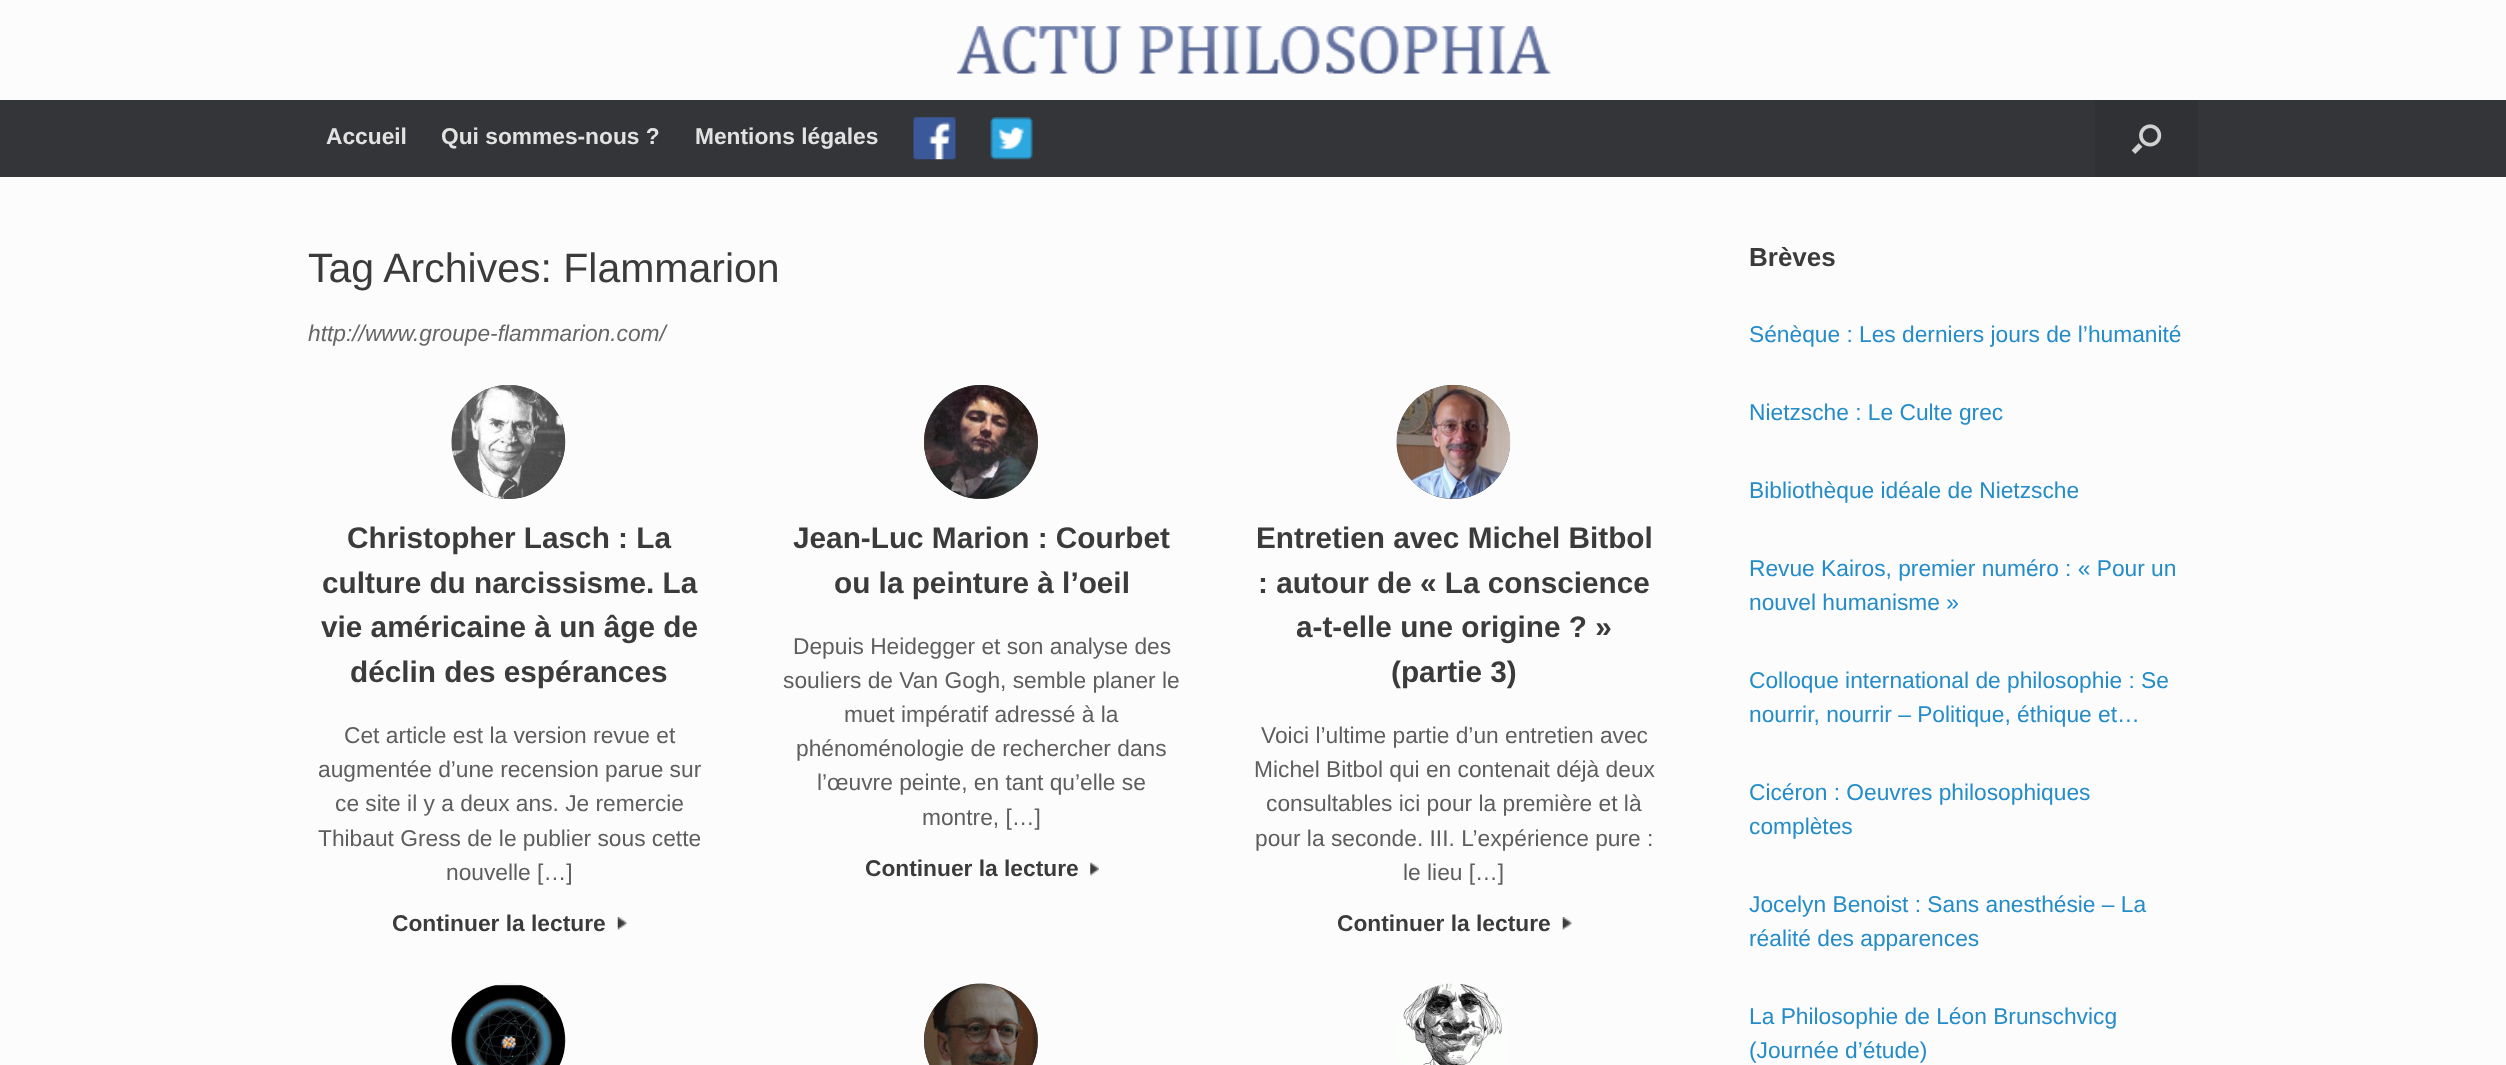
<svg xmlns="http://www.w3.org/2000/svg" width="2506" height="1065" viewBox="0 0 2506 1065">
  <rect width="100%" height="100%" fill="rgb(252,252,252)"/>
  <image x="957" y="26" width="594" height="48" href="pic1.png"/>
  <rect x="0" y="100" width="2506" height="77" fill="rgb(52,53,56)"/>
  <g font-family="Liberation Sans" font-size="22.75" font-weight="bold" fill="rgb(226,226,226)">
    <text x="326" y="144">Accueil</text>
    <text x="441" y="144">Qui sommes-nous ?</text>
    <text x="695" y="144">Mentions légales</text>
  </g>
  <image x="913" y="117" width="43" height="43" href="pic2.png"/>
  <image x="990" y="117" width="43" height="43" href="pic3.png"/>
  <rect x="2095" y="100" width="103" height="77" fill="rgb(48,49,52)"/>
  <image x="2131" y="124" width="31" height="30" href="pic4.png"/>
  <text x="308" y="282" font-family="Liberation Sans" font-size="41" fill="rgb(59,59,59)">Tag Archives: Flammarion</text>
  <text x="308" y="341" font-family="Liberation Sans" font-size="22.75" font-style="italic" fill="rgb(102,102,102)">http://www.groupe-flammarion.com/</text>
  <rect x="452" y="385" width="113" height="114" rx="56.5" fill="rgb(58,59,62)"/>
  <image x="451" y="385" width="115" height="114" href="pic5.png"/>
  <g font-family="Liberation Sans" font-size="29.75" font-weight="bold" fill="rgb(59,59,59)">
    <text x="347" y="548">Christopher Lasch : La</text>
    <text x="322" y="593">culture du narcissisme. La</text>
    <text x="321" y="637">vie américaine à un âge de</text>
    <text x="350" y="682">déclin des espérances</text>
  </g>
  <g font-family="Liberation Sans" font-size="22.75" fill="rgb(94,94,94)">
    <text x="344" y="743">Cet article est la version revue et</text>
    <text x="318" y="777">augmentée d’une recension parue sur</text>
    <text x="335" y="811">ce site il y a deux ans. Je remercie</text>
    <text x="318" y="846">Thibaut Gress de le publier sous cette</text>
    <text x="446" y="880">nouvelle […]</text>
  </g>
  <text x="392" y="931" font-family="Liberation Sans" font-size="22.75" font-weight="bold" fill="rgb(59,59,59)">Continuer la lecture</text>
  <image x="617" y="917" width="10" height="13" href="pic6.png"/>
  <circle cx="981" cy="442" r="57" fill="rgb(58,59,62)"/>
  <image x="924" y="385" width="114" height="114" href="pic7.png"/>
  <g font-family="Liberation Sans" font-size="29.75" font-weight="bold" fill="rgb(59,59,59)">
    <text x="793" y="548">Jean-Luc Marion : Courbet</text>
    <text x="834" y="593">ou la peinture à l’oeil</text>
  </g>
  <g font-family="Liberation Sans" font-size="22.75" fill="rgb(94,94,94)">
    <text x="793" y="654">Depuis Heidegger et son analyse des</text>
    <text x="783" y="688">souliers de Van Gogh, semble planer le</text>
    <text x="844" y="722">muet impératif adressé à la</text>
    <text x="796" y="756">phénoménologie de rechercher dans</text>
    <text x="817" y="790">l’œuvre peinte, en tant qu’elle se</text>
    <text x="922" y="825">montre, […]</text>
  </g>
  <text x="865" y="876" font-family="Liberation Sans" font-size="22.75" font-weight="bold" fill="rgb(59,59,59)">Continuer la lecture</text>
  <image x="1090" y="862" width="9" height="14" href="pic8.png"/>
  <rect x="1397" y="385" width="113" height="114" rx="56.5" fill="rgb(58,59,62)"/>
  <image x="1396" y="385" width="115" height="114" href="pic9.png"/>
  <g font-family="Liberation Sans" font-size="29.75" font-weight="bold" fill="rgb(59,59,59)">
    <text x="1256" y="548">Entretien avec Michel Bitbol</text>
    <text x="1258" y="593">: autour de « La conscience</text>
    <text x="1296" y="637">a-t-elle une origine ? »</text>
    <text x="1391" y="682">(partie 3)</text>
  </g>
  <g font-family="Liberation Sans" font-size="22.75" fill="rgb(94,94,94)">
    <text x="1261" y="743">Voici l’ultime partie d’un entretien avec</text>
    <text x="1254" y="777">Michel Bitbol qui en contenait déjà deux</text>
    <text x="1266" y="811">consultables ici pour la première et là</text>
    <text x="1255" y="846">pour la seconde. III. L’expérience pure :</text>
    <text x="1403" y="880">le lieu […]</text>
  </g>
  <text x="1337" y="931" font-family="Liberation Sans" font-size="22.75" font-weight="bold" fill="rgb(59,59,59)">Continuer la lecture</text>
  <image x="1562" y="917" width="10" height="13" href="pic6.png"/>
  <image x="451" y="983" width="115" height="82" href="pic10.png"/>
  <rect x="924" y="984" width="114" height="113" rx="56.5" fill="rgb(58,59,62)"/>
  <image x="924" y="983" width="114" height="82" href="pic11.png"/>
  <image x="1397" y="983" width="113" height="82" href="pic12.png"/>
  <text x="1749" y="266" font-family="Liberation Sans" font-size="26" font-weight="bold" fill="rgb(59,59,59)">Brèves</text>
  <g font-family="Liberation Sans" font-size="22.75" fill="rgb(36,140,200)">
    <text x="1749" y="342">Sénèque : Les derniers jours de l’humanité</text>
    <text x="1749" y="420">Nietzsche : Le Culte grec</text>
    <text x="1749" y="498">Bibliothèque idéale de Nietzsche</text>
    <text>
      <tspan x="1749" y="576">Revue Kairos, premier numéro : « Pour un</tspan>
      <tspan x="1749" y="610">nouvel humanisme »</tspan>
    </text>
    <text>
      <tspan x="1749" y="688">Colloque international de philosophie : Se</tspan>
      <tspan x="1749" y="722">nourrir, nourrir – Politique, éthique et…</tspan>
    </text>
    <text>
      <tspan x="1749" y="800">Cicéron : Oeuvres philosophiques</tspan>
      <tspan x="1749" y="834">complètes</tspan>
    </text>
    <text>
      <tspan x="1749" y="912">Jocelyn Benoist : Sans anesthésie – La</tspan>
      <tspan x="1749" y="946">réalité des apparences</tspan>
    </text>
    <text>
      <tspan x="1749" y="1024">La Philosophie de Léon Brunschvicg</tspan>
      <tspan x="1749" y="1058">(Journée d’étude)</tspan>
    </text>
  </g>
</svg>
